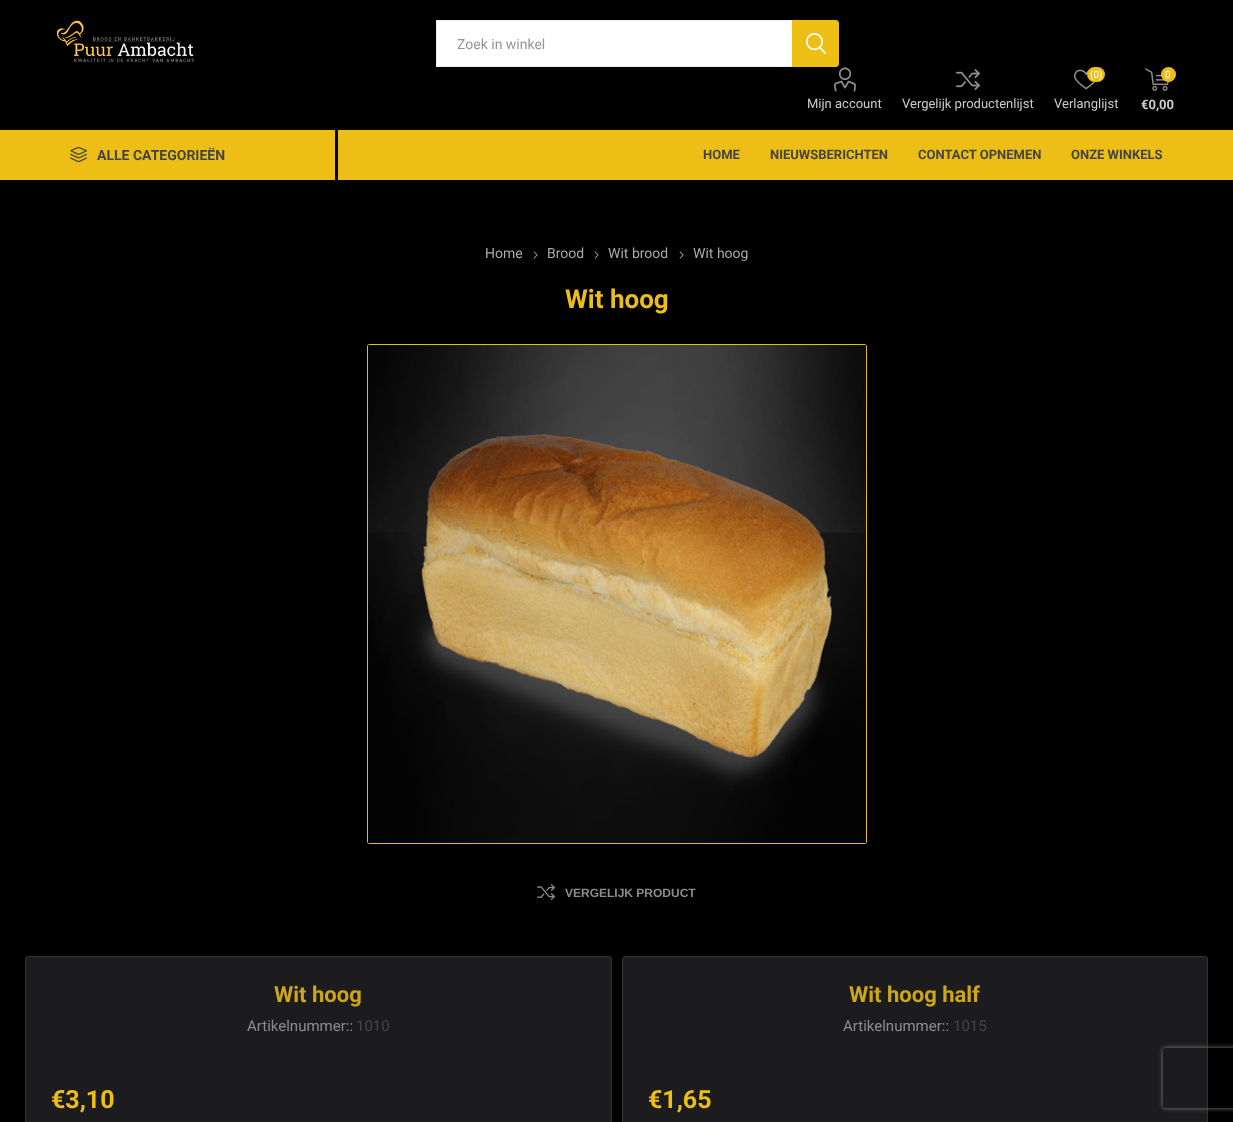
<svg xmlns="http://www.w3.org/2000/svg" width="1233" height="1122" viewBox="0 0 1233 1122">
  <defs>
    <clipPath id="clip1"><path d="M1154 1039H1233V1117H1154ZM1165 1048H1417C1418 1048 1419 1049 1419 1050V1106C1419 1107 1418 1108 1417 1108H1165C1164 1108 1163 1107 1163 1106V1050C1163 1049 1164 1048 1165 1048Z" clip-rule="evenodd"/></clipPath>
  </defs>
  <rect width="100%" height="100%" fill="rgb(0,0,0)"/>
  <image x="56" y="20" width="139" height="43" href="pic1.png"/>
  <rect x="437" y="21" width="355" height="45" fill="rgb(255,255,255)"/>
  <rect x="436" y="20" width="356" height="1" fill="rgb(238,238,238)"/>
  <rect x="436" y="66" width="356" height="1" fill="rgb(238,238,238)"/>
  <rect x="436" y="20" width="1" height="47" fill="rgb(238,238,238)"/>
  <text x="457" y="49" font-family="Roboto" font-size="14" fill="rgb(149,149,149)">Zoek in winkel</text>
  <path d="M792 20H836C837.5 20 839 21.5 839 23V64C839 65.5 837.5 67 836 67H792Z" fill="rgb(237,190,22)"/>
  <image x="806" y="33" width="20" height="21" href="pic2.png"/>
  <image x="834" y="67" width="22" height="25" href="pic3.png"/>
  <text x="807" y="108" font-family="Roboto" font-size="13" fill="rgb(204,204,204)">Mijn account</text>
  <image x="956" y="69" width="24" height="21" href="pic4.png"/>
  <text x="902" y="108" font-family="Roboto" font-size="13" fill="rgb(204,204,204)">Vergelijk productenlijst</text>
  <image x="1074" y="69" width="21" height="21" href="pic5.png"/>
  <rect x="1087" y="67" width="18" height="15" rx="7.5" fill="rgb(237,190,22)"/>
  <text x="1090" y="78" font-family="Roboto" font-size="10" fill="rgb(255,255,255)">(0)</text>
  <text x="1054" y="108" font-family="Roboto" font-size="13" fill="rgb(204,204,204)">Verlanglijst</text>
  <image x="1145" y="68" width="25" height="23" href="pic6.png"/>
  <circle cx="1168.5" cy="74.5" r="7.5" fill="rgb(237,190,22)"/>
  <text x="1165" y="78" font-family="Roboto" font-size="10" fill="rgb(255,255,255)">0</text>
  <text x="1141" y="109" font-family="Roboto" font-size="13" font-weight="bold" fill="rgb(204,204,204)">€0,00</text>
  <rect x="0" y="130" width="1233" height="50" fill="rgb(237,190,22)"/>
  <rect x="335" y="130" width="3" height="50" fill="rgb(0,0,0)"/>
  <image x="70" y="147" width="17" height="16" href="pic7.png"/>
  <text x="97" y="160" font-family="Roboto" font-size="14" font-weight="bold" fill="rgb(68,68,68)">ALLE CATEGORIEËN</text>
  <g font-family="Roboto" font-size="13" font-weight="bold" fill="rgb(68,68,68)">
    <text x="703" y="159">HOME</text>
    <text x="770" y="159">NIEUWSBERICHTEN</text>
    <text x="918" y="159">CONTACT OPNEMEN</text>
    <text x="1071" y="159">ONZE WINKELS</text>
  </g>
  <text x="485" y="258" font-family="Roboto" font-size="14" fill="rgb(169,169,169)">Home</text>
  <image x="533" y="251" width="5" height="8" href="pic8.png"/>
  <text x="547" y="258" font-family="Roboto" font-size="14" fill="rgb(169,169,169)">Brood</text>
  <image x="594" y="251" width="5" height="8" href="pic8.png"/>
  <text x="608" y="258" font-family="Roboto" font-size="14" fill="rgb(169,169,169)">Wit brood</text>
  <image x="679" y="251" width="5" height="8" href="pic8.png"/>
  <text x="693" y="258" font-family="Roboto" font-size="14" fill="rgb(169,169,169)">Wit hoog</text>
  <text x="565" y="308" font-family="Roboto" font-size="26" font-weight="bold" fill="rgb(237,190,22)">Wit hoog</text>
  <path d="M370 344C368 344 367 345 367 347V841C367 843 368 844 370 844H864C866 844 867 843 867 841V347C867 345 866 344 864 344ZM368 345V843H866V345Z" fill="rgb(235,188,22)" fill-rule="evenodd"/>
  <image x="368" y="345" width="498" height="498" href="pic9.png"/>
  <image x="537" y="884" width="18" height="16" href="pic10.png"/>
  <text x="565" y="897" font-family="Liberation Sans" font-size="12" font-weight="bold" fill="rgb(140,140,140)">VERGELIJK PRODUCT</text>
  <rect x="25.5" y="956.5" width="586" height="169" rx="2.5" fill="rgb(28,28,30)" stroke="rgb(51,51,51)"/>
  <text x="274" y="1002" font-family="Roboto" font-size="22" font-weight="bold" fill="rgb(206,166,23)">Wit hoog</text>
  <text x="247" y="1031" font-family="Roboto" font-size="15" fill="rgb(140,140,140)">Artikelnummer::</text>
  <text x="356" y="1031" font-family="Roboto" font-size="15" fill="rgb(68,68,68)">1010</text>
  <text x="51" y="1108" font-family="Roboto" font-size="25" font-weight="bold" fill="rgb(237,190,22)">€3,10</text>
  <rect x="622.5" y="956.5" width="585" height="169" rx="2.5" fill="rgb(28,28,30)" stroke="rgb(51,51,51)"/>
  <text x="849" y="1002" font-family="Roboto" font-size="22" font-weight="bold" fill="rgb(206,166,23)">Wit hoog half</text>
  <text x="843" y="1031" font-family="Roboto" font-size="15" fill="rgb(140,140,140)">Artikelnummer::</text>
  <text x="953" y="1031" font-family="Roboto" font-size="15" fill="rgb(68,68,68)">1015</text>
  <text x="648" y="1108" font-family="Roboto" font-size="25" font-weight="bold" fill="rgb(237,190,22)">€1,65</text>
  <g clip-path="url(#clip1)">
    <rect x="1163" y="1048" width="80" height="60" rx="2" fill="rgb(128,128,128)" filter="blur(2.5px)"/>
  </g>
</svg>
